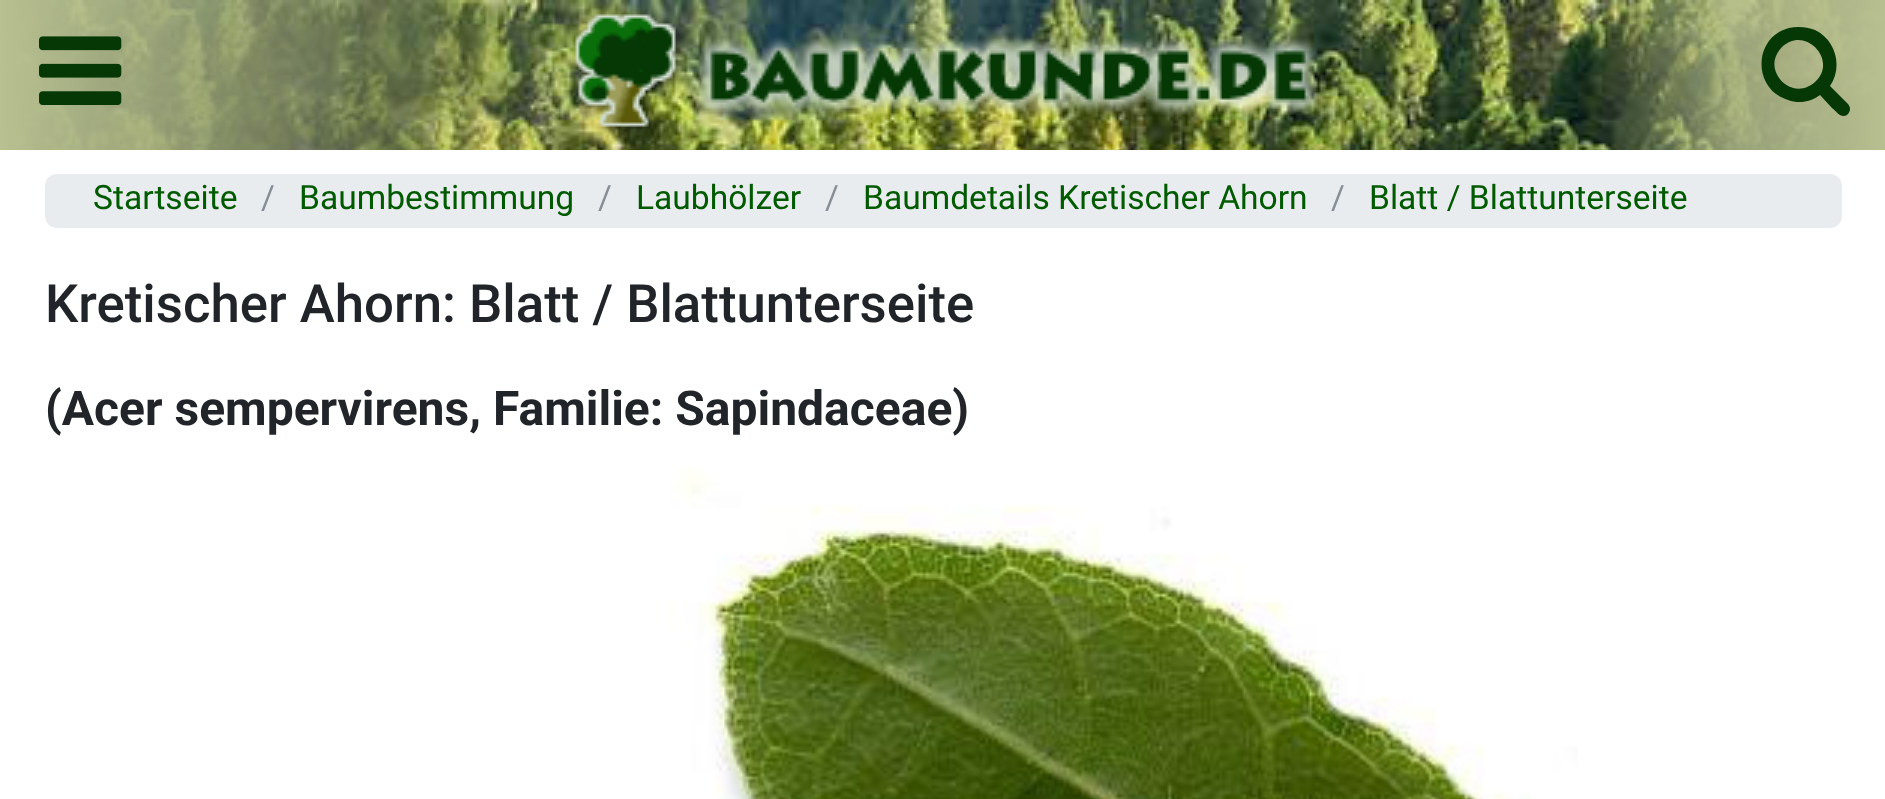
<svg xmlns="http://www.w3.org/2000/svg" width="1885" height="799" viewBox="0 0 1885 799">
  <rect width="100%" height="100%" fill="rgb(255,255,255)"/>
  <image x="0" y="0" width="1885" height="150" href="pic1.png"/>
  <image x="39" y="36" width="83" height="69" href="pic2.png"/>
  <image x="570" y="9" width="750" height="129" href="pic3.png"/>
  <path d="M1816 81C1838 59 1804 25 1782 47C1759 70 1793 104 1816 81ZM1850 109C1850 111 1849 113 1847 115C1841 119 1836 111 1832 108L1820 95C1811 102 1799 104 1788 100C1752 89 1753 37 1789 28C1798 26 1807 27 1815 30C1836 40 1843 67 1830 86L1848 104C1849 105 1850 107 1850 109Z" fill="rgb(5,56,5)"/>
  <rect x="45" y="174" width="1797" height="54" rx="12" fill="rgb(233,236,239)"/>
  <text x="93" y="209" font-family="Roboto" font-size="33.6" fill="rgb(0,90,0)">Startseite</text>
  <text x="261" y="209" font-family="Roboto" font-size="33.6" fill="rgb(134,142,150)">/</text>
  <text x="299" y="209" font-family="Roboto" font-size="33.6" fill="rgb(0,90,0)">Baumbestimmung</text>
  <text x="598" y="209" font-family="Roboto" font-size="33.6" fill="rgb(134,142,150)">/</text>
  <text x="636" y="209" font-family="Roboto" font-size="33.6" fill="rgb(0,90,0)">Laubhölzer</text>
  <text x="825" y="209" font-family="Roboto" font-size="33.6" fill="rgb(134,142,150)">/</text>
  <text x="863" y="209" font-family="Roboto" font-size="33.6" fill="rgb(0,90,0)">Baumdetails Kretischer Ahorn</text>
  <text x="1331" y="209" font-family="Roboto" font-size="33.6" fill="rgb(134,142,150)">/</text>
  <text x="1369" y="209" font-family="Roboto" font-size="33.6" fill="rgb(0,90,0)">Blatt / Blattunterseite</text>
  <text x="45" y="322" font-family="Roboto" font-size="52.75" font-weight="500" fill="rgb(33,37,41)">Kretischer Ahorn: Blatt / Blattunterseite</text>
  <text x="45" y="425" font-family="Roboto" font-size="48" font-weight="bold" fill="rgb(33,37,41)">(Acer sempervirens, Familie: Sapindaceae)</text>
  <image x="670" y="467" width="908" height="332" href="pic4.png"/>
</svg>
